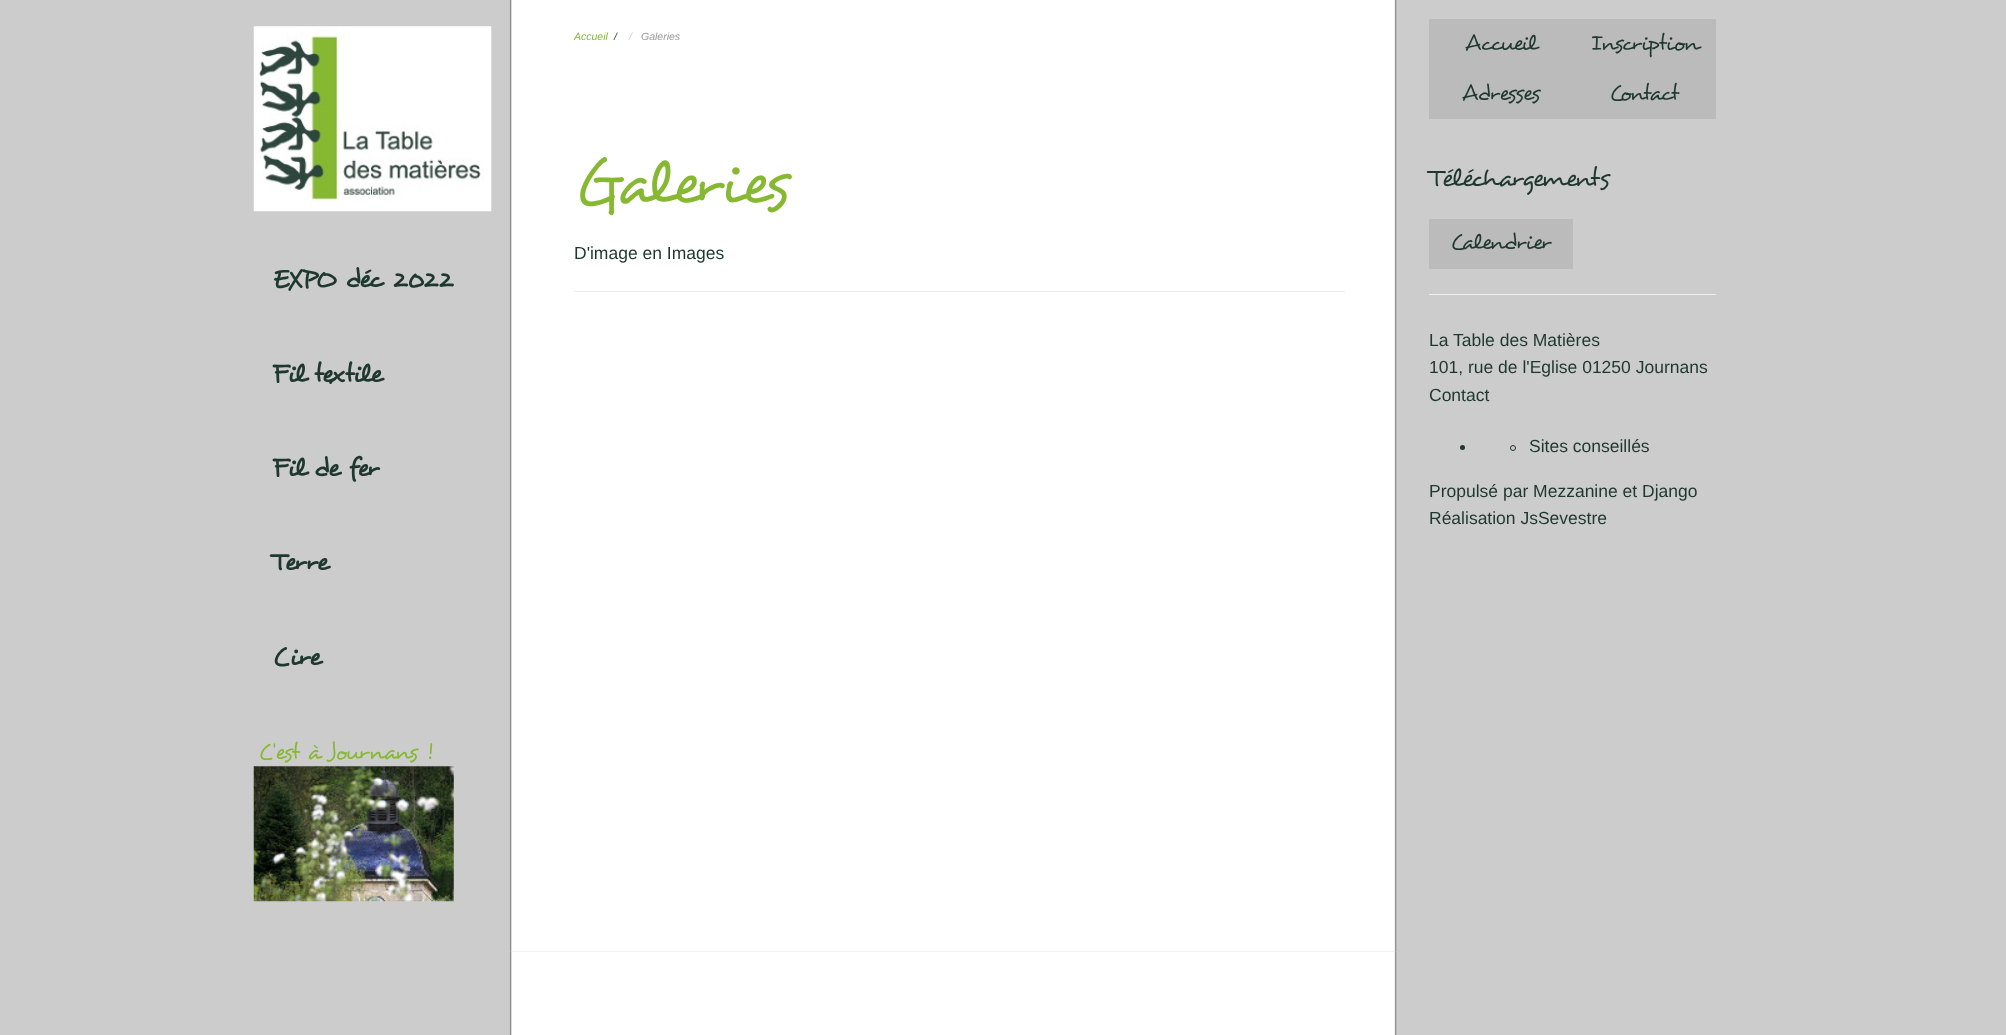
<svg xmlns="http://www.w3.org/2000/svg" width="2006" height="1035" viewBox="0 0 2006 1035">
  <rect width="100%" height="100%" fill="rgb(204,204,204)"/>
  <image x="509" y="0" width="888" height="1035" href="pic1.png"/>
  <image x="253" y="26" width="239" height="186" href="pic2.png"/>
  <g font-family="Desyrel" font-size="26.25" font-weight="bold" fill="rgb(30,55,47)">
    <text x="272" y="286">EXPO déc 2022</text>
    <text x="272" y="381">Fil textile</text>
    <text x="272" y="475">Fil de fer</text>
    <text x="272" y="569">Terre</text>
    <text x="272" y="664">Cire</text>
  </g>
  <image x="253" y="766" width="201" height="136" href="pic3.png"/>
  <text x="258" y="758" font-family="Desyrel" font-size="22.75" fill="rgb(134,184,49)">C'est à Journans !</text>
  <text x="574" y="40" font-family="Liberation Sans" font-size="10.5" font-style="italic" fill="rgb(134,184,49)">Accueil</text>
  <text x="614" y="40" font-family="Liberation Sans" font-size="10.5" font-style="italic" fill="rgb(30,55,47)">/</text>
  <text x="629" y="40" font-family="Liberation Sans" font-size="10.5" font-style="italic" fill="rgb(204,204,204)">/</text>
  <text x="641" y="40" font-family="Liberation Sans" font-size="10.5" font-style="italic" fill="rgb(153,153,153)">Galeries</text>
  <text x="574" y="200" font-family="Desyrel" font-size="62.5" fill="rgb(134,184,49)">Galeries</text>
  <text x="574" y="259" font-family="Liberation Sans" font-size="17.5" fill="rgb(30,55,47)">D'image en Images</text>
  <rect x="574" y="291" width="771" height="1" fill="rgb(238,238,238)"/>
  <rect x="1429" y="19" width="287" height="50" fill="rgb(187,187,187)"/>
  <g font-family="Desyrel" font-size="22.5" fill="rgb(30,55,47)">
    <text x="1465" y="49">Accueil</text>
    <text x="1591" y="49">Inscription</text>
  </g>
  <rect x="1429" y="69" width="287" height="50" fill="rgb(187,187,187)"/>
  <g font-family="Desyrel" font-size="22.5" fill="rgb(30,55,47)">
    <text x="1462" y="99">Adresses</text>
    <text x="1609" y="99">Contact</text>
  </g>
  <text x="1429" y="185" font-family="Desyrel" font-size="26.25" fill="rgb(30,55,47)">Téléchargements</text>
  <rect x="1429" y="219" width="144" height="50" fill="rgb(187,187,187)"/>
  <text x="1450" y="248" font-family="Desyrel" font-size="22.5" fill="rgb(30,55,47)">Calendrier</text>
  <rect x="1429" y="294" width="287" height="1" fill="rgb(238,238,238)"/>
  <g font-family="Liberation Sans" font-size="17.5" fill="rgb(30,55,47)">
    <text>
      <tspan x="1429" y="346">La Table des Matières</tspan>
      <tspan x="1429" y="373">101, rue de l'Eglise 01250 Journans</tspan>
      <tspan x="1429" y="401">Contact</tspan>
    </text>
  </g>
  <circle cx="1462.5" cy="447.5" r="2.5" fill="rgb(30,55,47)"/>
  <circle cx="1513" cy="448" r="2.5" fill="none" stroke="rgb(30,55,47)"/>
  <g font-family="Liberation Sans" font-size="17.5" fill="rgb(30,55,47)">
    <text x="1529" y="452">Sites conseillés</text>
    <text>
      <tspan x="1429" y="497">Propulsé par Mezzanine et Django</tspan>
      <tspan x="1429" y="524">Réalisation JsSevestre</tspan>
    </text>
  </g>
  <rect x="509" y="951" width="888" height="75" fill="rgb(204,204,204)"/>
  <image x="509" y="951" width="888" height="75" href="pic4.png"/>
</svg>
